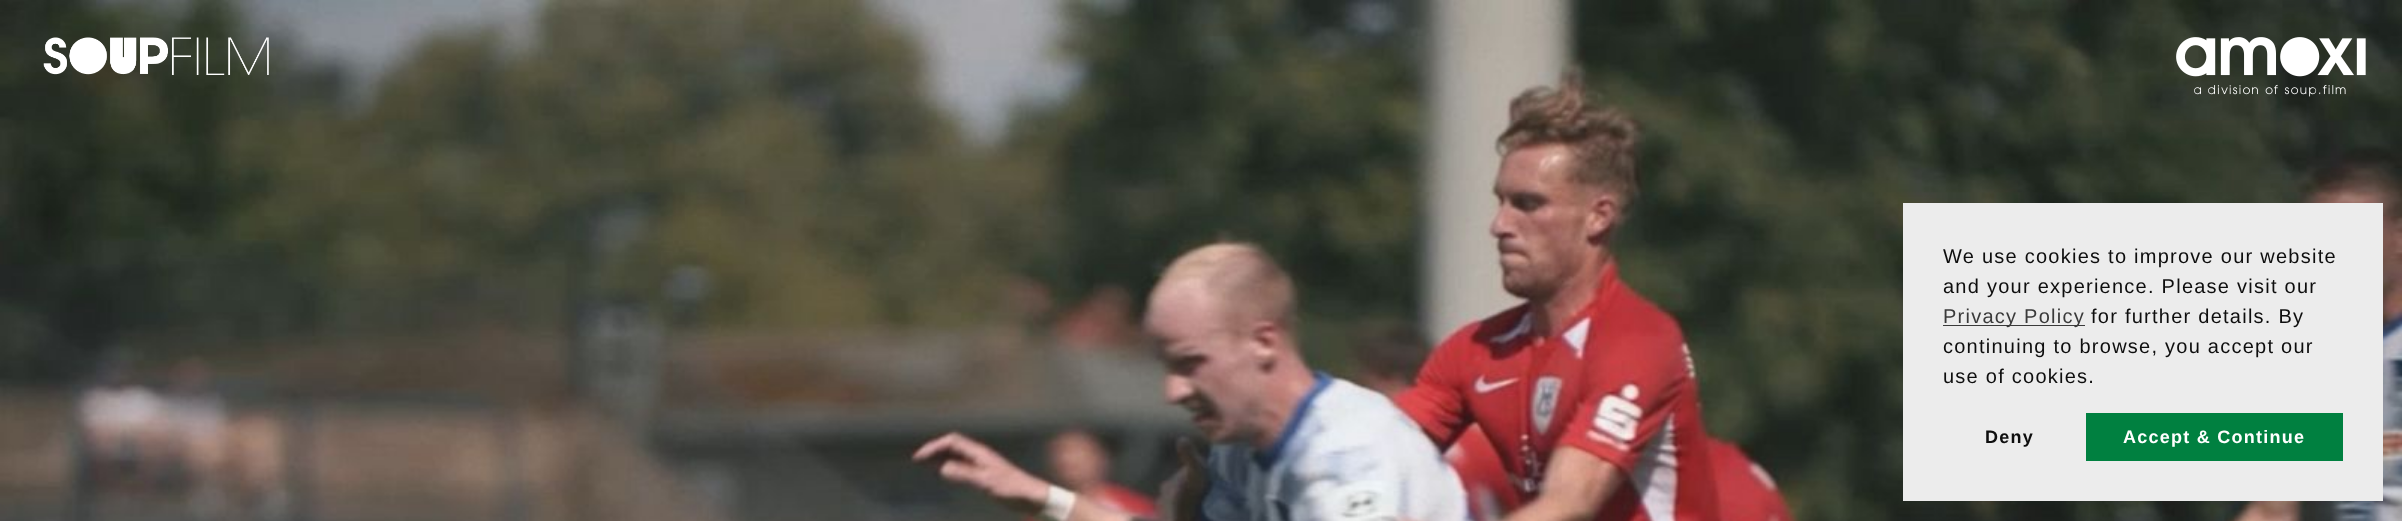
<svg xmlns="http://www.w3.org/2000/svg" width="2402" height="521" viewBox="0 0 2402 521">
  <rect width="100%" height="100%" fill="rgb(255,255,255)"/>
  <image x="0" y="0" width="2402" height="521" href="pic1.png"/>
  <image x="43" y="37" width="226" height="38" href="pic2.png"/>
  <image x="2176" y="37" width="190" height="60" href="pic3.png"/>
  <rect x="1903" y="203" width="480" height="298" fill="rgb(236,236,236)"/>
  <g font-family="Liberation Sans" font-size="20" letter-spacing="1.25" fill="rgb(14,14,14)">
    <text>
      <tspan x="1943" y="263">We use cookies to improve our website</tspan>
      <tspan x="1943" y="293">and your experience. Please visit our</tspan>
    </text>
  </g>
  <rect x="1943" y="325" width="142" height="1" fill="rgb(58,58,58)"/>
  <text x="1943" y="323" font-family="Liberation Sans" font-size="20" letter-spacing="1.25" fill="rgb(58,58,58)">Privacy Policy</text>
  <g font-family="Liberation Sans" font-size="20" letter-spacing="1.25" fill="rgb(14,14,14)">
    <text x="2091" y="323">for further details. By</text>
    <text>
      <tspan x="1943" y="353">continuing to browse, you accept our</tspan>
      <tspan x="1943" y="383">use of cookies.</tspan>
    </text>
  </g>
  <text x="1985" y="443" font-family="Liberation Sans" font-size="18" font-weight="bold" letter-spacing="1.25" fill="rgb(14,14,14)">Deny</text>
  <rect x="2086" y="413" width="257" height="48" fill="rgb(0,128,64)"/>
  <text x="2123" y="443" font-family="Liberation Sans" font-size="18" font-weight="bold" letter-spacing="1.25" fill="rgb(255,255,255)">Accept &amp; Continue</text>
</svg>
